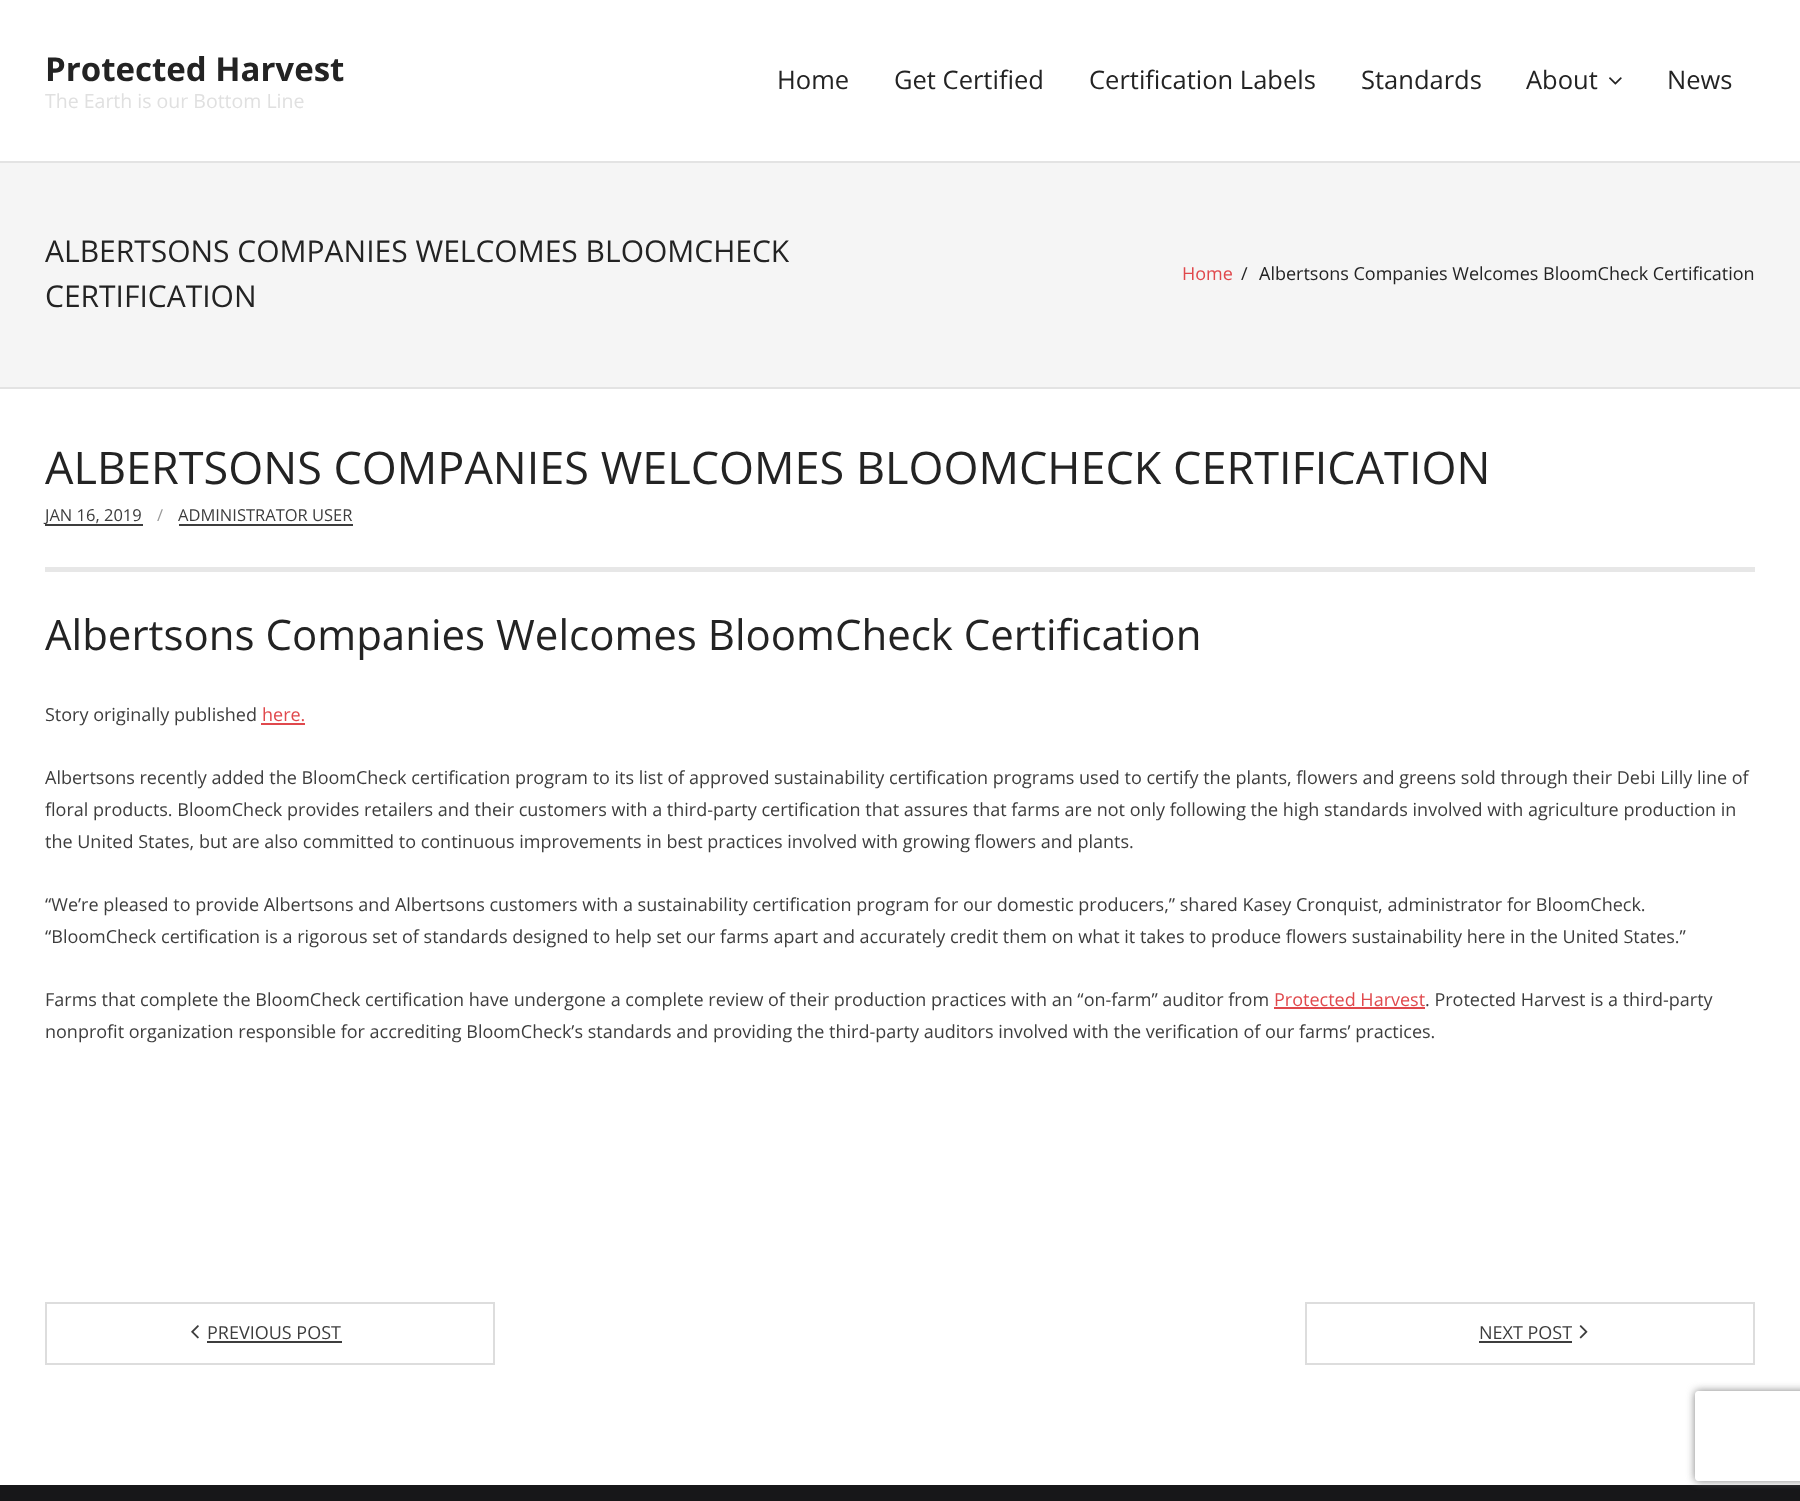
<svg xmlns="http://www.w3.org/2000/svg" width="1800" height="1501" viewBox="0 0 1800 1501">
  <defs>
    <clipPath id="clip1"><path d="M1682 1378H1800V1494H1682ZM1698 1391H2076C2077.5 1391 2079 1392.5 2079 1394V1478C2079 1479.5 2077.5 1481 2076 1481H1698C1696.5 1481 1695 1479.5 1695 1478V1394C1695 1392.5 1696.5 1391 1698 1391Z" clip-rule="evenodd"/></clipPath>
  </defs>
  <rect width="100%" height="100%" fill="rgb(255,255,255)"/>
  <rect x="0" y="161" width="1800" height="2" fill="rgb(227,227,227)"/>
  <text x="45" y="81" font-family="Open Sans" font-size="33" font-weight="bold" fill="rgb(35,35,35)">Protected Harvest</text>
  <text x="45" y="108" font-family="Open Sans" font-size="19.5" fill="rgb(224,224,224)">The Earth is our Bottom Line</text>
  <g font-family="Open Sans" font-size="25.5" fill="rgb(35,35,35)">
    <text x="777" y="89">Home</text>
    <text x="894" y="89">Get Certified</text>
    <text x="1089" y="89">Certification Labels</text>
    <text x="1361" y="89">Standards</text>
    <text x="1526" y="89">About</text>
  </g>
  <image x="1609" y="77" width="13" height="8" href="pic1.png"/>
  <text x="1667" y="89" font-family="Open Sans" font-size="25.5" fill="rgb(35,35,35)">News</text>
  <rect x="0" y="163" width="1800" height="224" fill="rgb(245,245,245)"/>
  <rect x="0" y="387" width="1800" height="2" fill="rgb(227,227,227)"/>
  <g font-family="Open Sans" font-size="30" fill="rgb(35,35,35)">
    <text>
      <tspan x="45" y="262">ALBERTSONS COMPANIES WELCOMES BLOOMCHECK</tspan>
      <tspan x="45" y="307">CERTIFICATION</tspan>
    </text>
  </g>
  <text x="1182" y="280" font-family="Open Sans" font-size="18" fill="rgb(224,72,76)">Home</text>
  <g font-family="Open Sans" font-size="18" fill="rgb(35,35,35)">
    <text x="1241" y="280">/</text>
    <text x="1259" y="280">Albertsons Companies Welcomes BloomCheck Certification</text>
  </g>
  <rect x="45" y="567" width="1710" height="5" fill="rgb(231,231,231)"/>
  <text x="45" y="484" font-family="Open Sans" font-size="45" fill="rgb(35,35,35)">ALBERTSONS COMPANIES WELCOMES BLOOMCHECK CERTIFICATION</text>
  <rect x="45" y="524" width="98" height="2" fill="rgb(61,61,61)"/>
  <text x="45" y="521" font-family="Open Sans" font-size="16.5" fill="rgb(61,61,61)">JAN 16, 2019</text>
  <text x="157" y="521" font-family="Open Sans" font-size="16.5" fill="rgb(153,153,153)">/</text>
  <text x="178" y="521" font-family="Open Sans" font-size="16.5" fill="rgb(61,61,61)">ADMINISTRATOR USER</text>
  <rect x="179" y="524" width="174" height="2" fill="rgb(61,61,61)"/>
  <text x="45" y="650" font-family="Open Sans" font-size="42" fill="rgb(35,35,35)">Albertsons Companies Welcomes BloomCheck Certification</text>
  <text x="45" y="721" font-family="Open Sans" font-size="18" fill="rgb(61,61,61)">Story originally published</text>
  <text x="262" y="721" font-family="Open Sans" font-size="18" fill="rgb(224,72,76)">here.</text>
  <rect x="261" y="723" width="44" height="2" fill="rgb(224,72,76)"/>
  <g font-family="Open Sans" font-size="18" fill="rgb(61,61,61)">
    <text>
      <tspan x="45" y="784">Albertsons recently added the BloomCheck certification program to its list of approved sustainability certification programs used to certify the plants, flowers and greens sold through their Debi Lilly line of</tspan>
      <tspan x="45" y="816">floral products. BloomCheck provides retailers and their customers with a third-party certification that assures that farms are not only following the high standards involved with agriculture production in</tspan>
      <tspan x="45" y="848">the United States, but are also committed to continuous improvements in best practices involved with growing flowers and plants.</tspan>
    </text>
    <text>
      <tspan x="45" y="911">“We’re pleased to provide Albertsons and Albertsons customers with a sustainability certification program for our domestic producers,” shared Kasey Cronquist, administrator for BloomCheck.</tspan>
      <tspan x="45" y="943">“BloomCheck certification is a rigorous set of standards designed to help set our farms apart and accurately credit them on what it takes to produce flowers sustainability here in the United States.”</tspan>
    </text>
    <text x="45" y="1006">Farms that complete the BloomCheck certification have undergone a complete review of their production practices with an “on-farm” auditor from</text>
  </g>
  <text x="1274" y="1006" font-family="Open Sans" font-size="18" fill="rgb(224,72,76)">Protected Harvest</text>
  <rect x="1274" y="1007" width="151" height="2" fill="rgb(224,72,76)"/>
  <g font-family="Open Sans" font-size="18" fill="rgb(61,61,61)">
    <text x="1425" y="1006">. Protected Harvest is a third-party</text>
    <text x="45" y="1038">nonprofit organization responsible for accrediting BloomCheck’s standards and providing the third-party auditors involved with the verification of our farms’ practices.</text>
  </g>
  <rect x="46" y="1303" width="448" height="61" fill="none" stroke="rgb(221,221,221)" stroke-width="2"/>
  <image x="191" y="1325" width="8" height="14" href="pic2.png"/>
  <text x="207" y="1339" font-family="Open Sans" font-size="18" fill="rgb(61,61,61)">PREVIOUS POST</text>
  <rect x="207" y="1341" width="135" height="2" fill="rgb(61,61,61)"/>
  <rect x="1306" y="1303" width="448" height="61" fill="none" stroke="rgb(221,221,221)" stroke-width="2"/>
  <text x="1479" y="1339" font-family="Open Sans" font-size="18" fill="rgb(61,61,61)">NEXT POST</text>
  <rect x="1479" y="1341" width="93" height="2" fill="rgb(61,61,61)"/>
  <image x="1579" y="1325" width="9" height="14" href="pic3.png"/>
  <rect x="0" y="1485" width="1800" height="16" fill="rgb(23,23,25)"/>
  <g clip-path="url(#clip1)">
    <rect x="1695" y="1391" width="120" height="90" rx="3" fill="rgb(128,128,128)" filter="blur(4px)"/>
  </g>
</svg>
